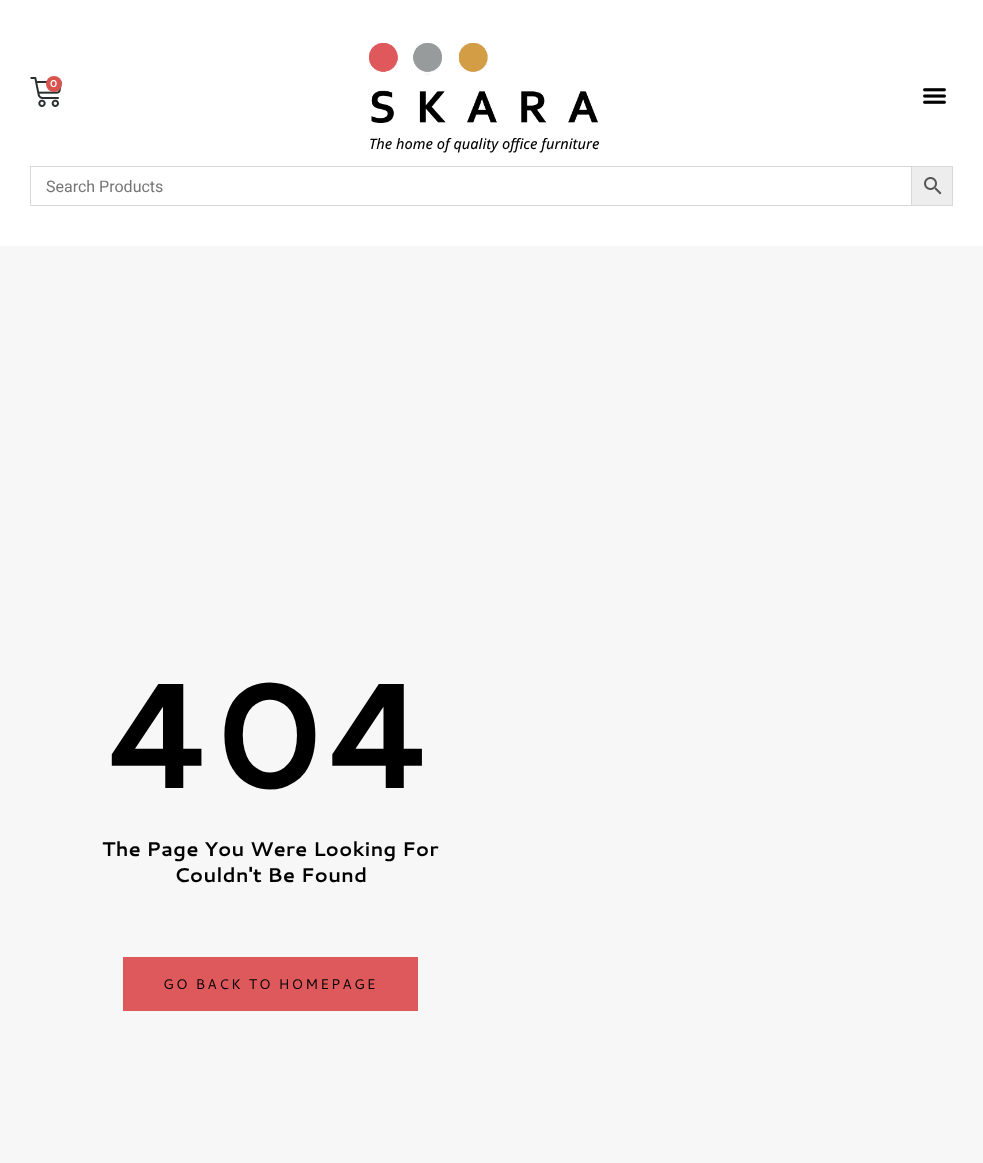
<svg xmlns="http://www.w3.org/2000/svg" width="983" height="1163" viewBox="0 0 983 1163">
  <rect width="100%" height="100%" fill="rgb(255,255,255)"/>
  <image x="30" y="77" width="32" height="30" href="pic1.png"/>
  <circle cx="54" cy="84" r="8" fill="rgb(217,83,79)"/>
  <text x="50" y="87" font-family="Cantarell" font-size="10" font-weight="bold" fill="rgb(255,255,255)">0</text>
  <image x="923" y="88" width="23" height="16" href="pic2.png"/>
  <image x="369" y="43" width="229" height="80" href="pic3.png"/>
  <text x="369" y="149" font-family="Open Sans" font-size="14.5" font-weight="500" font-style="italic" fill="rgb(0,0,0)">The home of quality office furniture</text>
  <rect x="911.5" y="166.5" width="41" height="39" fill="rgb(237,237,237)" stroke="rgb(216,216,216)"/>
  <rect x="30.5" y="166.5" width="881" height="39" fill="none" stroke="rgb(216,216,216)"/>
  <text x="46" y="192" font-family="Roboto" font-size="16" fill="rgb(117,117,117)">Search Products</text>
  <image x="924" y="177" width="18" height="18" href="pic4.png"/>
  <rect x="0" y="246" width="983" height="917" fill="rgb(247,247,247)"/>
  <text x="103" y="788" font-family="Cantarell" font-size="150" font-weight="bold" fill="rgb(0,0,0)">404</text>
  <g font-family="Cantarell" font-size="20" font-weight="bold" fill="rgb(0,0,0)">
    <text x="102" y="856">The Page You Were Looking For</text>
    <text x="174" y="882">Couldn't Be Found</text>
  </g>
  <rect x="123" y="957" width="295" height="54" fill="rgb(221,89,92)"/>
  <text x="163" y="989" font-family="Cantarell" font-size="14" letter-spacing="2.1" fill="rgb(0,0,0)">GO BACK TO HOMEPAGE</text>
</svg>
